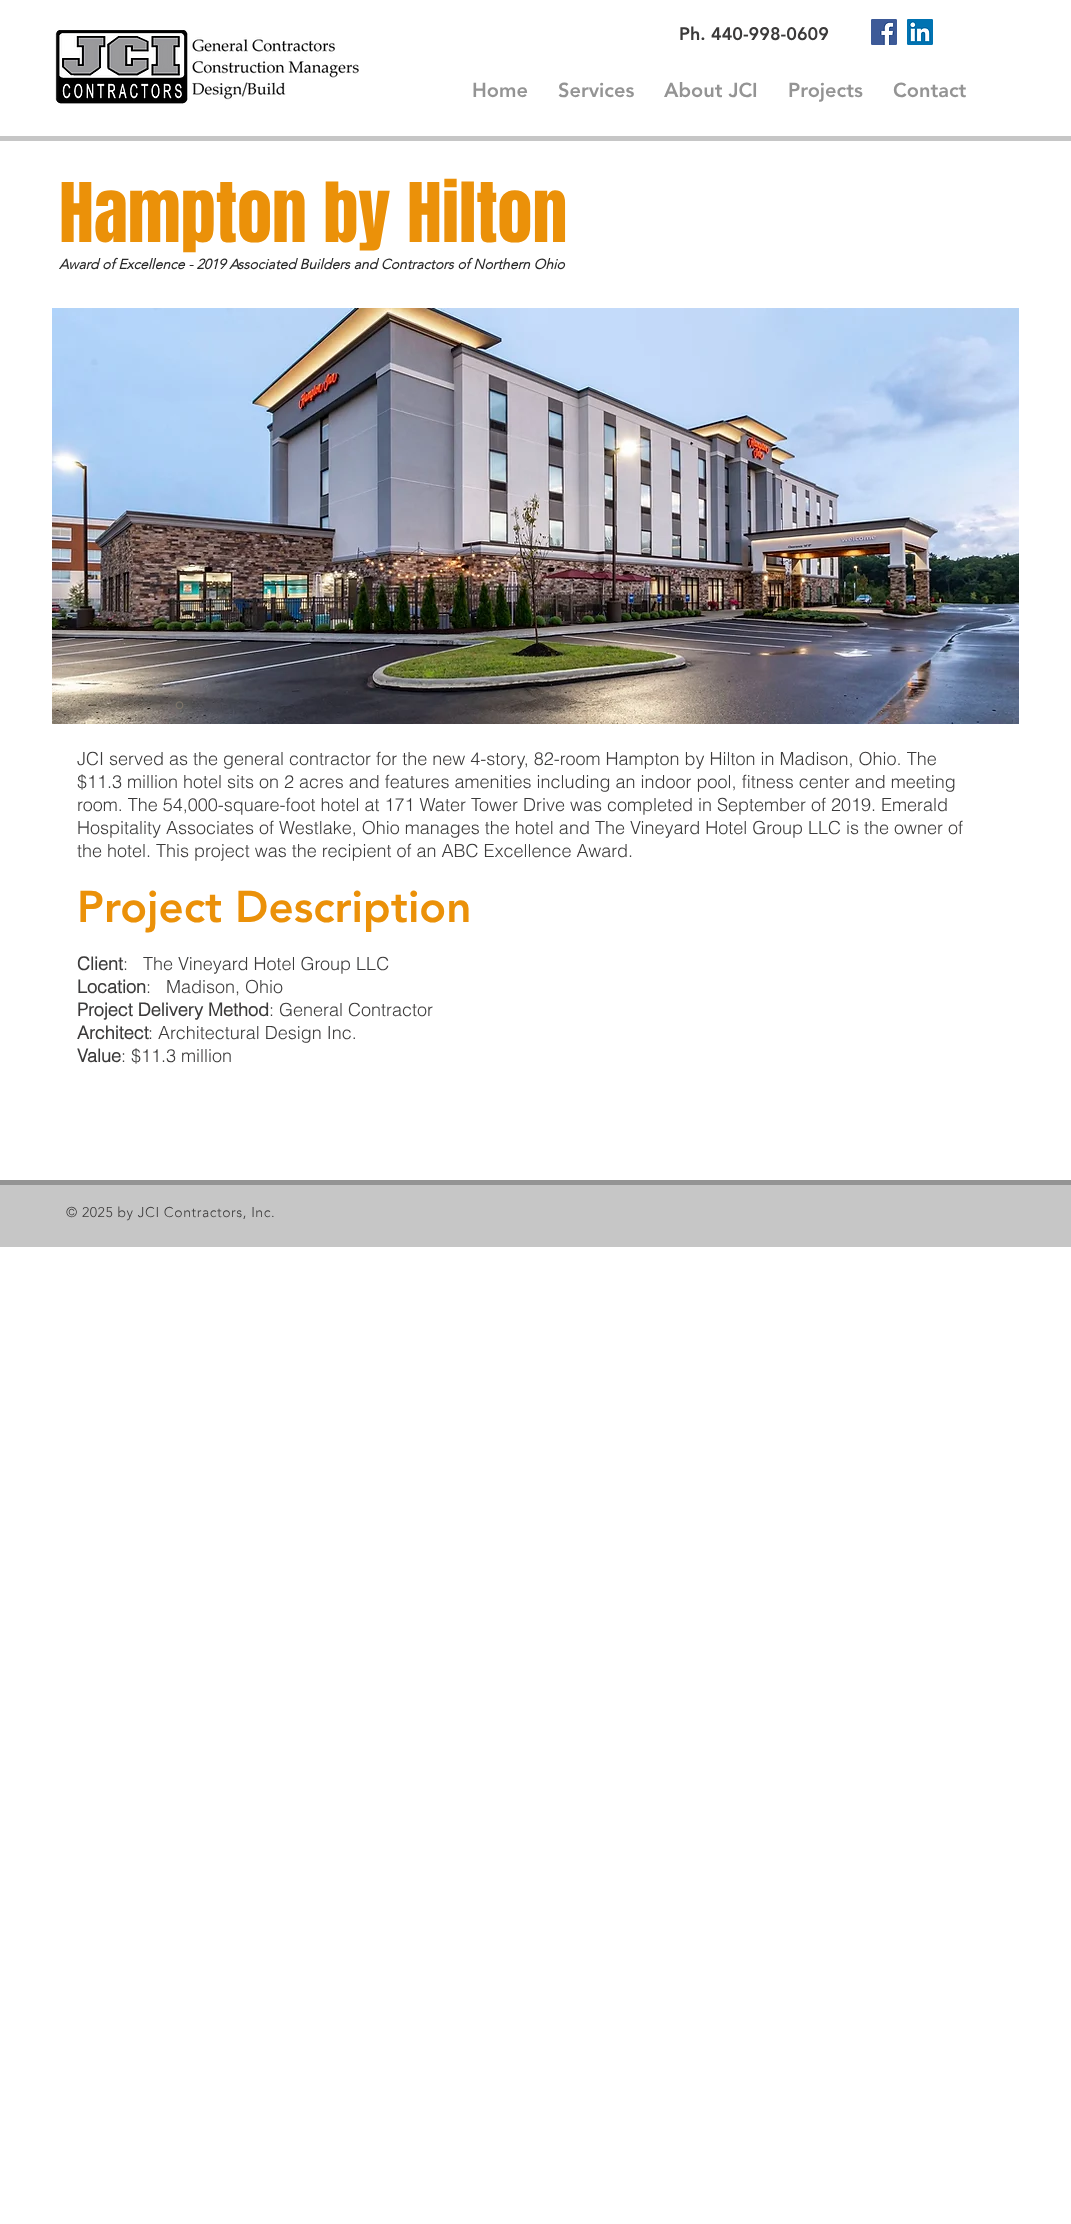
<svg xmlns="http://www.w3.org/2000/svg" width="1071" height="2224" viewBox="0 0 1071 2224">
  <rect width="100%" height="100%" fill="rgb(255,255,255)"/>
  <image x="55" y="30" width="304" height="74" href="pic1.png"/>
  <text x="679" y="40" font-family="'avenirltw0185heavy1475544'" font-size="18" font-weight="900" fill="rgb(59,58,58)">Ph. 440-998-0609</text>
  <image x="871" y="19" width="26" height="26" href="pic2.png"/>
  <image x="907" y="19" width="26" height="26" href="pic3.png"/>
  <rect x="0" y="136" width="1071" height="5" fill="rgb(198,198,198)"/>
  <g font-family="'avenirltw0185heavy1475544'" font-size="20" font-weight="900" fill="rgb(148,148,148)">
    <text x="472" y="97">Home</text>
    <text x="558" y="97">Services</text>
    <text x="664" y="97">About JCI</text>
    <text x="788" y="97">Projects</text>
    <text x="893" y="97">Contact</text>
  </g>
  <text x="59" y="242" font-family="Anton" font-size="70" fill="rgb(235,145,9)">Hampton by Hilton</text>
  <text x="59" y="269" font-family="'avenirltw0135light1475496'" font-size="14" font-weight="bold" font-style="italic" fill="rgb(41,41,41)">Award of Excellence - 2019 Associated Builders and Contractors of Northern Ohio</text>
  <image x="52" y="308" width="967" height="416" href="pic4.png"/>
  <text x="175" y="709" font-family="futura" font-size="16" fill="rgb(125,117,107)">o</text>
  <g font-family="helvetica" font-size="18" font-weight="300" fill="rgb(59,58,58)">
    <text>
      <tspan x="77" y="765">JCI served as the general contractor for the new 4-story, 82-room Hampton by Hilton in Madison, Ohio. The</tspan>
      <tspan x="77" y="788">$11.3 million hotel sits on 2 acres and features amenities including an indoor pool, fitness center and meeting</tspan>
      <tspan x="77" y="811">room. The 54,000-square-foot hotel at 171 Water Tower Drive was completed in September of 2019. Emerald</tspan>
      <tspan x="77" y="834">Hospitality Associates of Westlake, Ohio manages the hotel and The Vineyard Hotel Group LLC is the owner of</tspan>
      <tspan x="77" y="857">the hotel. This project was the recipient of an ABC Excellence Award.</tspan>
    </text>
  </g>
  <text x="77" y="922" font-family="'avenirltw0185heavy1475544'" font-size="44" font-weight="900" fill="rgb(235,145,9)">Project Description</text>
  <text x="77" y="970" font-family="helvetica" font-size="18" font-weight="bold" fill="rgb(59,58,58)">Client</text>
  <text x="123" y="970" font-family="helvetica" font-size="18" font-weight="300" fill="rgb(59,58,58)" xml:space="preserve">:   The Vineyard Hotel Group LLC</text>
  <text x="77" y="993" font-family="helvetica" font-size="18" font-weight="bold" fill="rgb(59,58,58)">Location</text>
  <text x="146" y="993" font-family="helvetica" font-size="18" font-weight="300" fill="rgb(59,58,58)" xml:space="preserve">:   Madison, Ohio</text>
  <text x="77" y="1016" font-family="helvetica" font-size="18" font-weight="bold" fill="rgb(59,58,58)">Project Delivery Method</text>
  <text x="269" y="1016" font-family="helvetica" font-size="18" font-weight="300" fill="rgb(59,58,58)">: General Contractor</text>
  <text x="77" y="1039" font-family="helvetica" font-size="18" font-weight="bold" fill="rgb(59,58,58)">Architect</text>
  <text x="148" y="1039" font-family="helvetica" font-size="18" font-weight="300" fill="rgb(59,58,58)">: Architectural Design Inc.</text>
  <text x="77" y="1062" font-family="helvetica" font-size="18" font-weight="bold" fill="rgb(59,58,58)">Value</text>
  <text x="121" y="1062" font-family="helvetica" font-size="18" font-weight="300" fill="rgb(59,58,58)">: $11.3 million</text>
  <rect x="0" y="1185" width="1071" height="62" fill="rgb(198,198,198)"/>
  <rect x="0" y="1180" width="1071" height="5" fill="rgb(148,148,148)"/>
  <text x="66" y="1217" font-family="'avenirltw0135light1475496'" font-size="14" font-weight="300" letter-spacing="0.55" fill="rgb(59,58,58)">© 2025 by JCI Contractors, Inc.</text>
</svg>
